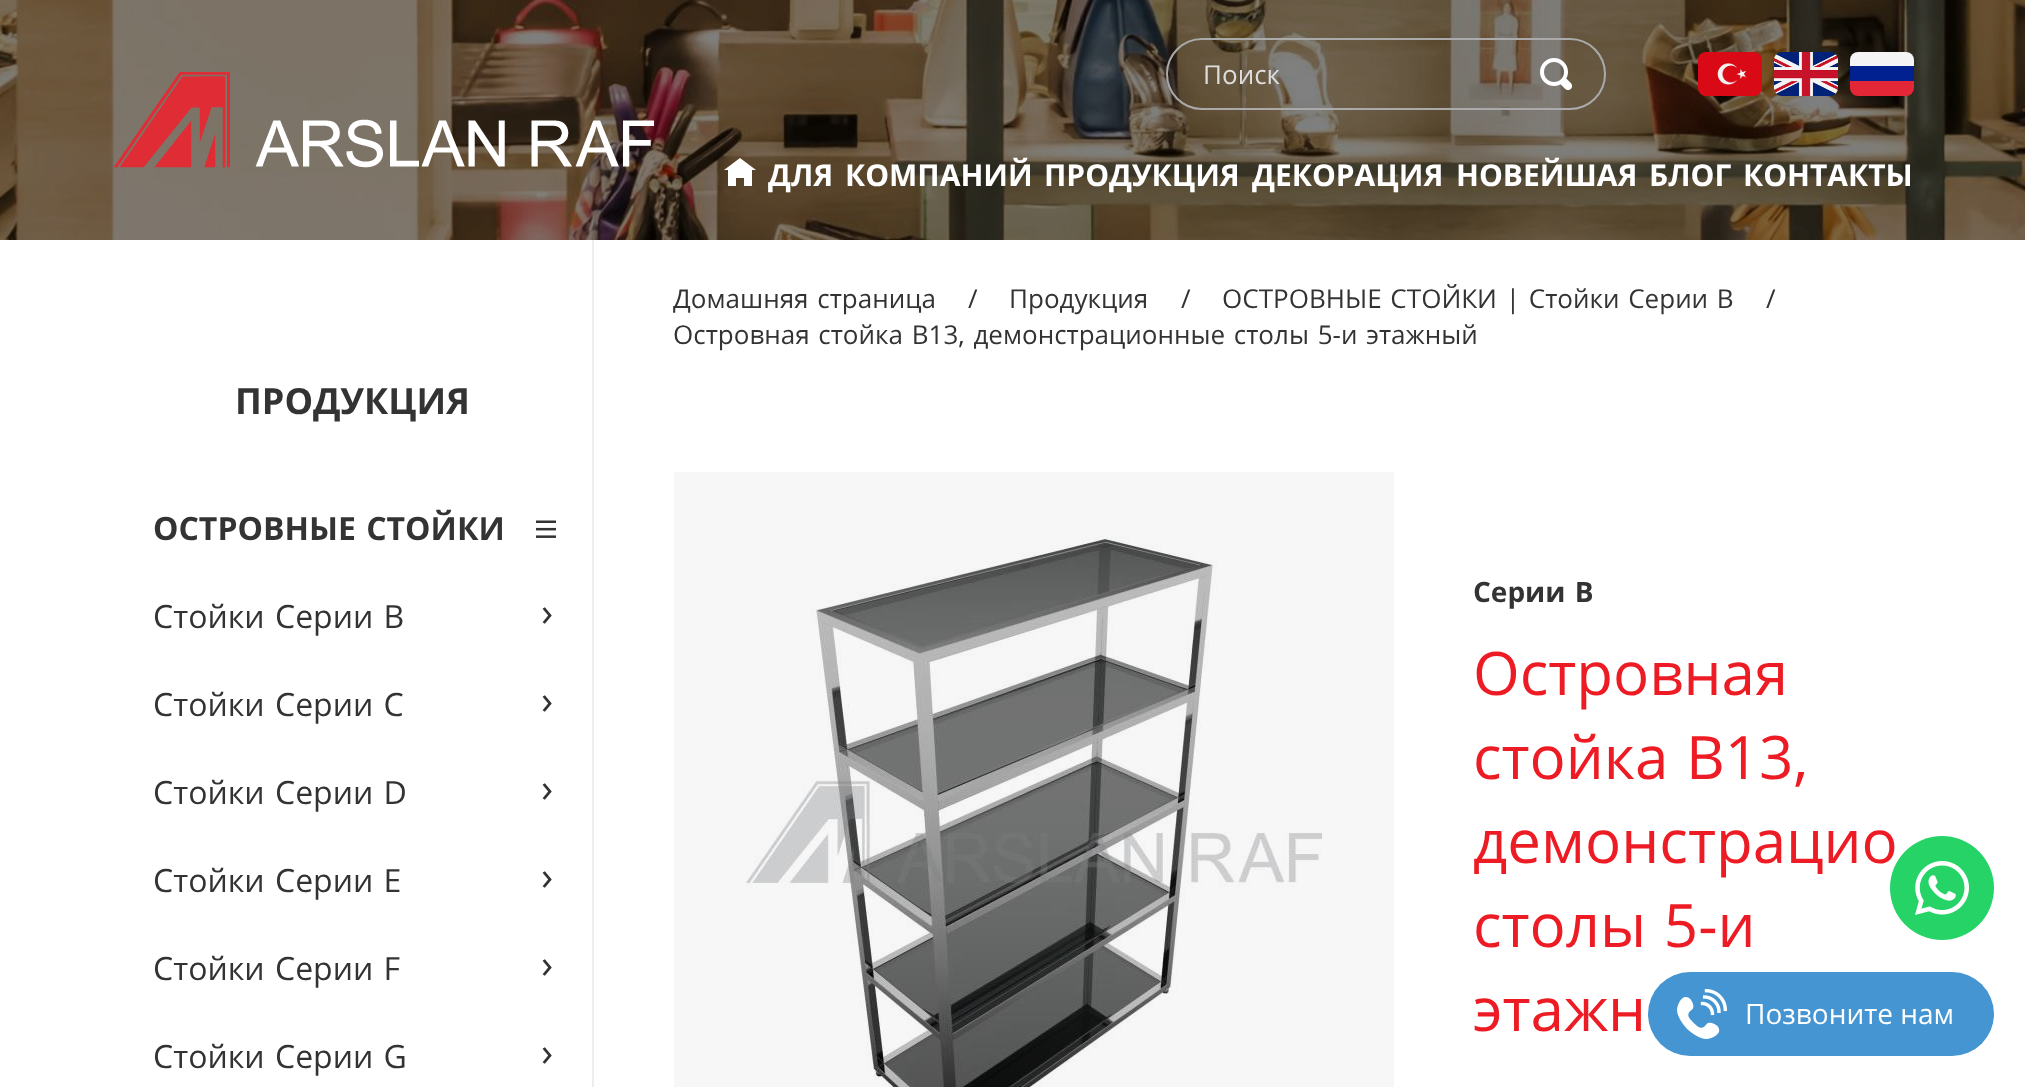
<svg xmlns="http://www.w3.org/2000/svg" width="2025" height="1087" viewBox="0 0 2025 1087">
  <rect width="100%" height="100%" fill="rgb(255,255,255)"/>
  <image x="0" y="0" width="2025" height="240" href="pic1.png"/>
  <image x="114" y="72" width="540" height="96" href="pic2.png"/>
  <rect x="1167" y="39" width="438" height="70" rx="35" fill="none" stroke="rgb(170,170,170)" stroke-width="2"/>
  <text x="1203" y="84" font-family="Open Sans" font-size="26" fill="rgb(221,221,221)">Поиск</text>
  <image x="1540" y="58" width="33" height="33" href="pic3.png"/>
  <image x="1698" y="52" width="64" height="44" href="pic4.png"/>
  <image x="1774" y="52" width="64" height="44" href="pic5.png"/>
  <image x="1850" y="52" width="64" height="44" href="pic6.png"/>
  <path d="M740 158L756 170H752V186H744V178H736V186H728V170H724Z" fill="rgb(255,255,255)"/>
  <g font-family="Open Sans" font-size="30" font-weight="bold" fill="rgb(255,255,255)">
    <text x="768" y="186" word-spacing="4">ДЛЯ КОМПАНИЙ</text>
    <text x="1044" y="186">ПРОДУКЦИЯ</text>
    <text x="1252" y="186">ДЕКОРАЦИЯ</text>
    <text x="1456" y="186">НОВЕЙШАЯ</text>
    <text x="1649" y="186">БЛОГ</text>
    <text x="1743" y="186">КОНТАКТЫ</text>
  </g>
  <rect x="592" y="240" width="2" height="847" fill="rgb(238,238,238)"/>
  <text x="235" y="414" font-family="Open Sans" font-size="36" font-weight="bold" fill="rgb(51,51,51)">ПРОДУКЦИЯ</text>
  <text x="153" y="540" word-spacing="2" font-family="Open Sans" font-size="32" font-weight="bold" fill="rgb(51,51,51)">ОСТРОВНЫЕ СТОЙКИ</text>
  <image x="536" y="520" width="20" height="18" href="pic7.png"/>
  <text x="153" y="628" word-spacing="2" font-family="Open Sans" font-size="32" fill="rgb(51,51,51)">Стойки Серии B</text>
  <text x="541" y="626" font-family="Open Sans" font-size="40" fill="rgb(51,51,51)">›</text>
  <text x="153" y="716" word-spacing="2" font-family="Open Sans" font-size="32" fill="rgb(51,51,51)">Стойки Серии C</text>
  <text x="541" y="714" font-family="Open Sans" font-size="40" fill="rgb(51,51,51)">›</text>
  <text x="153" y="804" word-spacing="2" font-family="Open Sans" font-size="32" fill="rgb(51,51,51)">Стойки Серии D</text>
  <text x="541" y="802" font-family="Open Sans" font-size="40" fill="rgb(51,51,51)">›</text>
  <text x="153" y="892" word-spacing="2" font-family="Open Sans" font-size="32" fill="rgb(51,51,51)">Стойки Серии E</text>
  <text x="541" y="890" font-family="Open Sans" font-size="40" fill="rgb(51,51,51)">›</text>
  <text x="153" y="980" word-spacing="2" font-family="Open Sans" font-size="32" fill="rgb(51,51,51)">Стойки Серии F</text>
  <text x="541" y="978" font-family="Open Sans" font-size="40" fill="rgb(51,51,51)">›</text>
  <text x="153" y="1068" word-spacing="2" font-family="Open Sans" font-size="32" fill="rgb(51,51,51)">Стойки Серии G</text>
  <text x="541" y="1066" font-family="Open Sans" font-size="40" fill="rgb(51,51,51)">›</text>
  <g font-family="Open Sans" font-size="26" fill="rgb(51,51,51)">
    <text x="673" y="308" word-spacing="2">Домашняя страница</text>
    <text x="968" y="308">/</text>
    <text x="1009" y="308">Продукция</text>
    <text x="1181" y="308">/</text>
    <text x="1222" y="308" word-spacing="2">ОСТРОВНЫЕ СТОЙКИ | Стойки Серии B</text>
    <text x="1766" y="308">/</text>
    <text x="673" y="344" word-spacing="2">Островная стойка В13, демонстрационные столы 5-и этажный</text>
  </g>
  <rect x="674" y="472" width="720" height="615" fill="rgb(247,247,247)"/>
  <image x="746" y="536" width="576" height="551" href="pic8.png"/>
  <text x="1473" y="602" word-spacing="2" font-family="Open Sans" font-size="28" font-weight="bold" fill="rgb(51,51,51)">Серии B</text>
  <g font-family="Open Sans" font-size="60" fill="rgb(237,28,36)">
    <text>
      <tspan x="1473" y="695">Островная</tspan>
      <tspan x="1473" y="779" word-spacing="2">стойка В13,</tspan>
      <tspan x="1473" y="863">демонстрацио</tspan>
      <tspan x="1473" y="947" word-spacing="2">столы 5-и</tspan>
      <tspan x="1473" y="1031">этажн</tspan>
    </text>
  </g>
  <circle cx="1942" cy="888" r="52" fill="rgb(37,211,102)"/>
  <image x="1915" y="861" width="54" height="54" href="pic9.png"/>
  <rect x="1648" y="972" width="346" height="84" rx="42" fill="rgb(68,149,209)"/>
  <image x="1677" y="989" width="50" height="50" href="pic10.png"/>
  <text x="1745" y="1024" font-family="Open Sans" font-size="28" fill="rgb(255,255,255)">Позвоните нам</text>
</svg>
